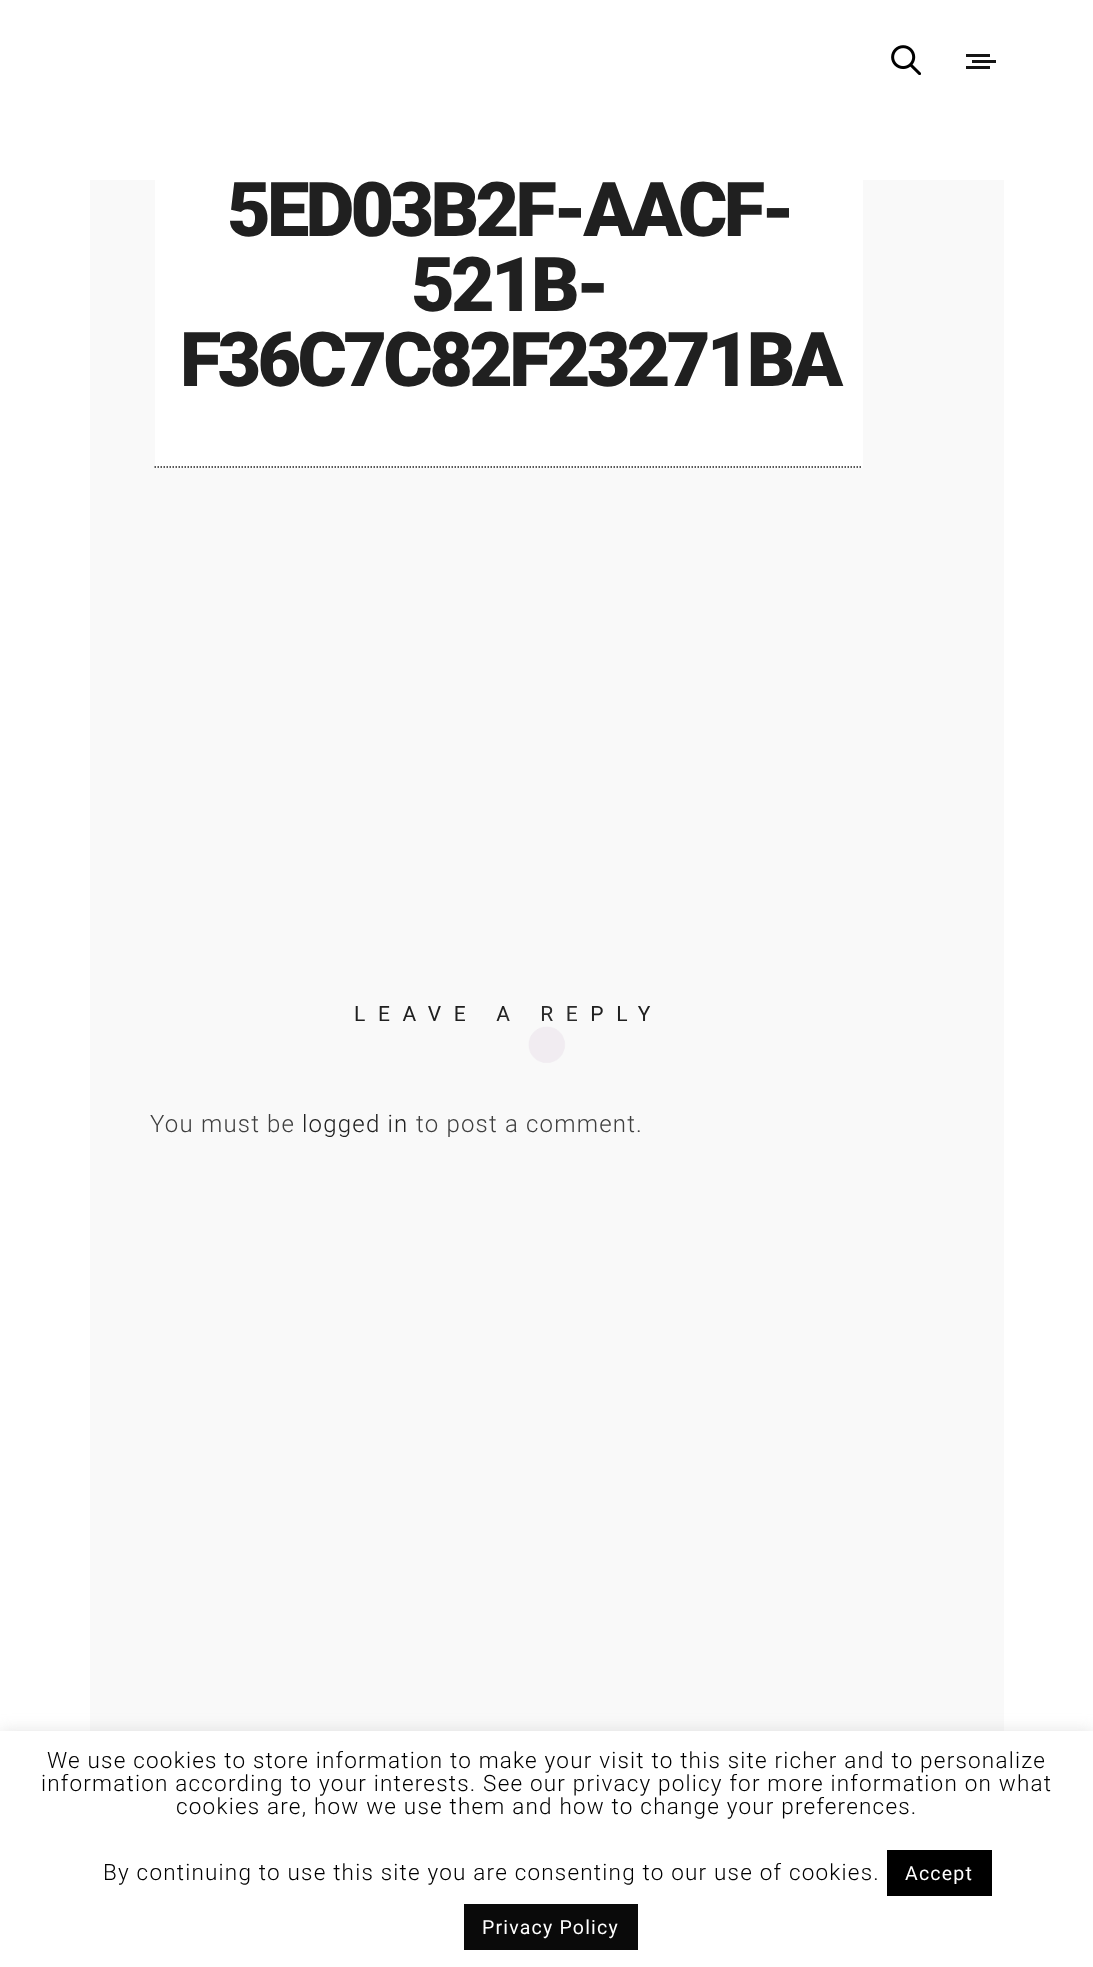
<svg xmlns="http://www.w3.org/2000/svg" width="1093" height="1967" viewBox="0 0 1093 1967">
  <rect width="100%" height="100%" fill="rgb(249,249,249)"/>
  <rect x="0" y="0" width="1093" height="180" fill="rgb(255,255,255)"/>
  <image x="891" y="45" width="30" height="30" href="pic1.png"/>
  <rect x="966" y="54" width="24" height="3" fill="rgb(21,21,21)"/>
  <rect x="972" y="60" width="24" height="3" fill="rgb(21,21,21)"/>
  <rect x="966" y="66" width="24" height="3" fill="rgb(21,21,21)"/>
  <rect x="0" y="180" width="90" height="1551" fill="rgb(255,255,255)"/>
  <rect x="155" y="180" width="708" height="288" fill="rgb(255,255,255)"/>
  <path d="M154.5 467H862.5" fill="none" stroke="rgb(32,32,32)" stroke-width="1.5" stroke-dasharray="1.5 1.5"/>
  <g font-family="Roboto" font-size="75.5" font-weight="900" letter-spacing="-3.75" fill="rgb(32,32,32)">
    <text x="227" y="236">5ED03B2F-AACF-</text>
    <text x="411" y="311">521B-</text>
    <text x="180" y="386">F36C7C82F23271BA</text>
  </g>
  <text x="354" y="1021" font-family="Roboto" font-size="21" letter-spacing="12.6" fill="rgb(32,32,32)">LEAVE A REPLY</text>
  <text x="150" y="1132" font-family="Roboto" font-size="24" font-weight="300" letter-spacing="1.2" fill="rgb(63,63,63)">You must be</text>
  <text x="302" y="1132" font-family="Roboto" font-size="24" font-weight="300" letter-spacing="1.2" fill="rgb(32,32,32)">logged in</text>
  <text x="416" y="1132" font-family="Roboto" font-size="24" font-weight="300" letter-spacing="1.2" fill="rgb(63,63,63)">to post a comment.</text>
  <rect x="1004" y="180" width="89" height="1551" fill="rgb(255,255,255)"/>
  <image x="505" y="1006" width="72" height="57" href="pic2.png"/>
  <rect x="0" y="1730" width="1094" height="237" fill="rgba(172,171,171,0.3)" filter="blur(7.5px)"/>
  <rect x="0" y="1731" width="1093" height="236" fill="rgb(255,255,255)"/>
  <g font-family="Roboto" font-size="22.5" font-weight="300" letter-spacing="1.2" fill="rgb(0,0,0)">
    <text x="47" y="1768">We use cookies to store information to make your visit to this site richer and to personalize</text>
    <text x="41" y="1791">information according to your interests. See our privacy policy for more information on what</text>
    <text x="176" y="1814">cookies are, how we use them and how to change your preferences.</text>
    <text x="103" y="1880">By continuing to use this site you are consenting to our use of cookies.</text>
  </g>
  <rect x="887" y="1850" width="105" height="46" fill="rgb(0,0,0)"/>
  <text x="905" y="1880" font-family="Roboto" font-size="19.5" letter-spacing="1.2" fill="rgb(255,255,255)">Accept</text>
  <rect x="464" y="1904" width="174" height="46" fill="rgb(10,10,10)"/>
  <text x="482" y="1934" font-family="Roboto" font-size="19.5" letter-spacing="1.2" fill="rgb(255,255,255)">Privacy Policy</text>
</svg>
